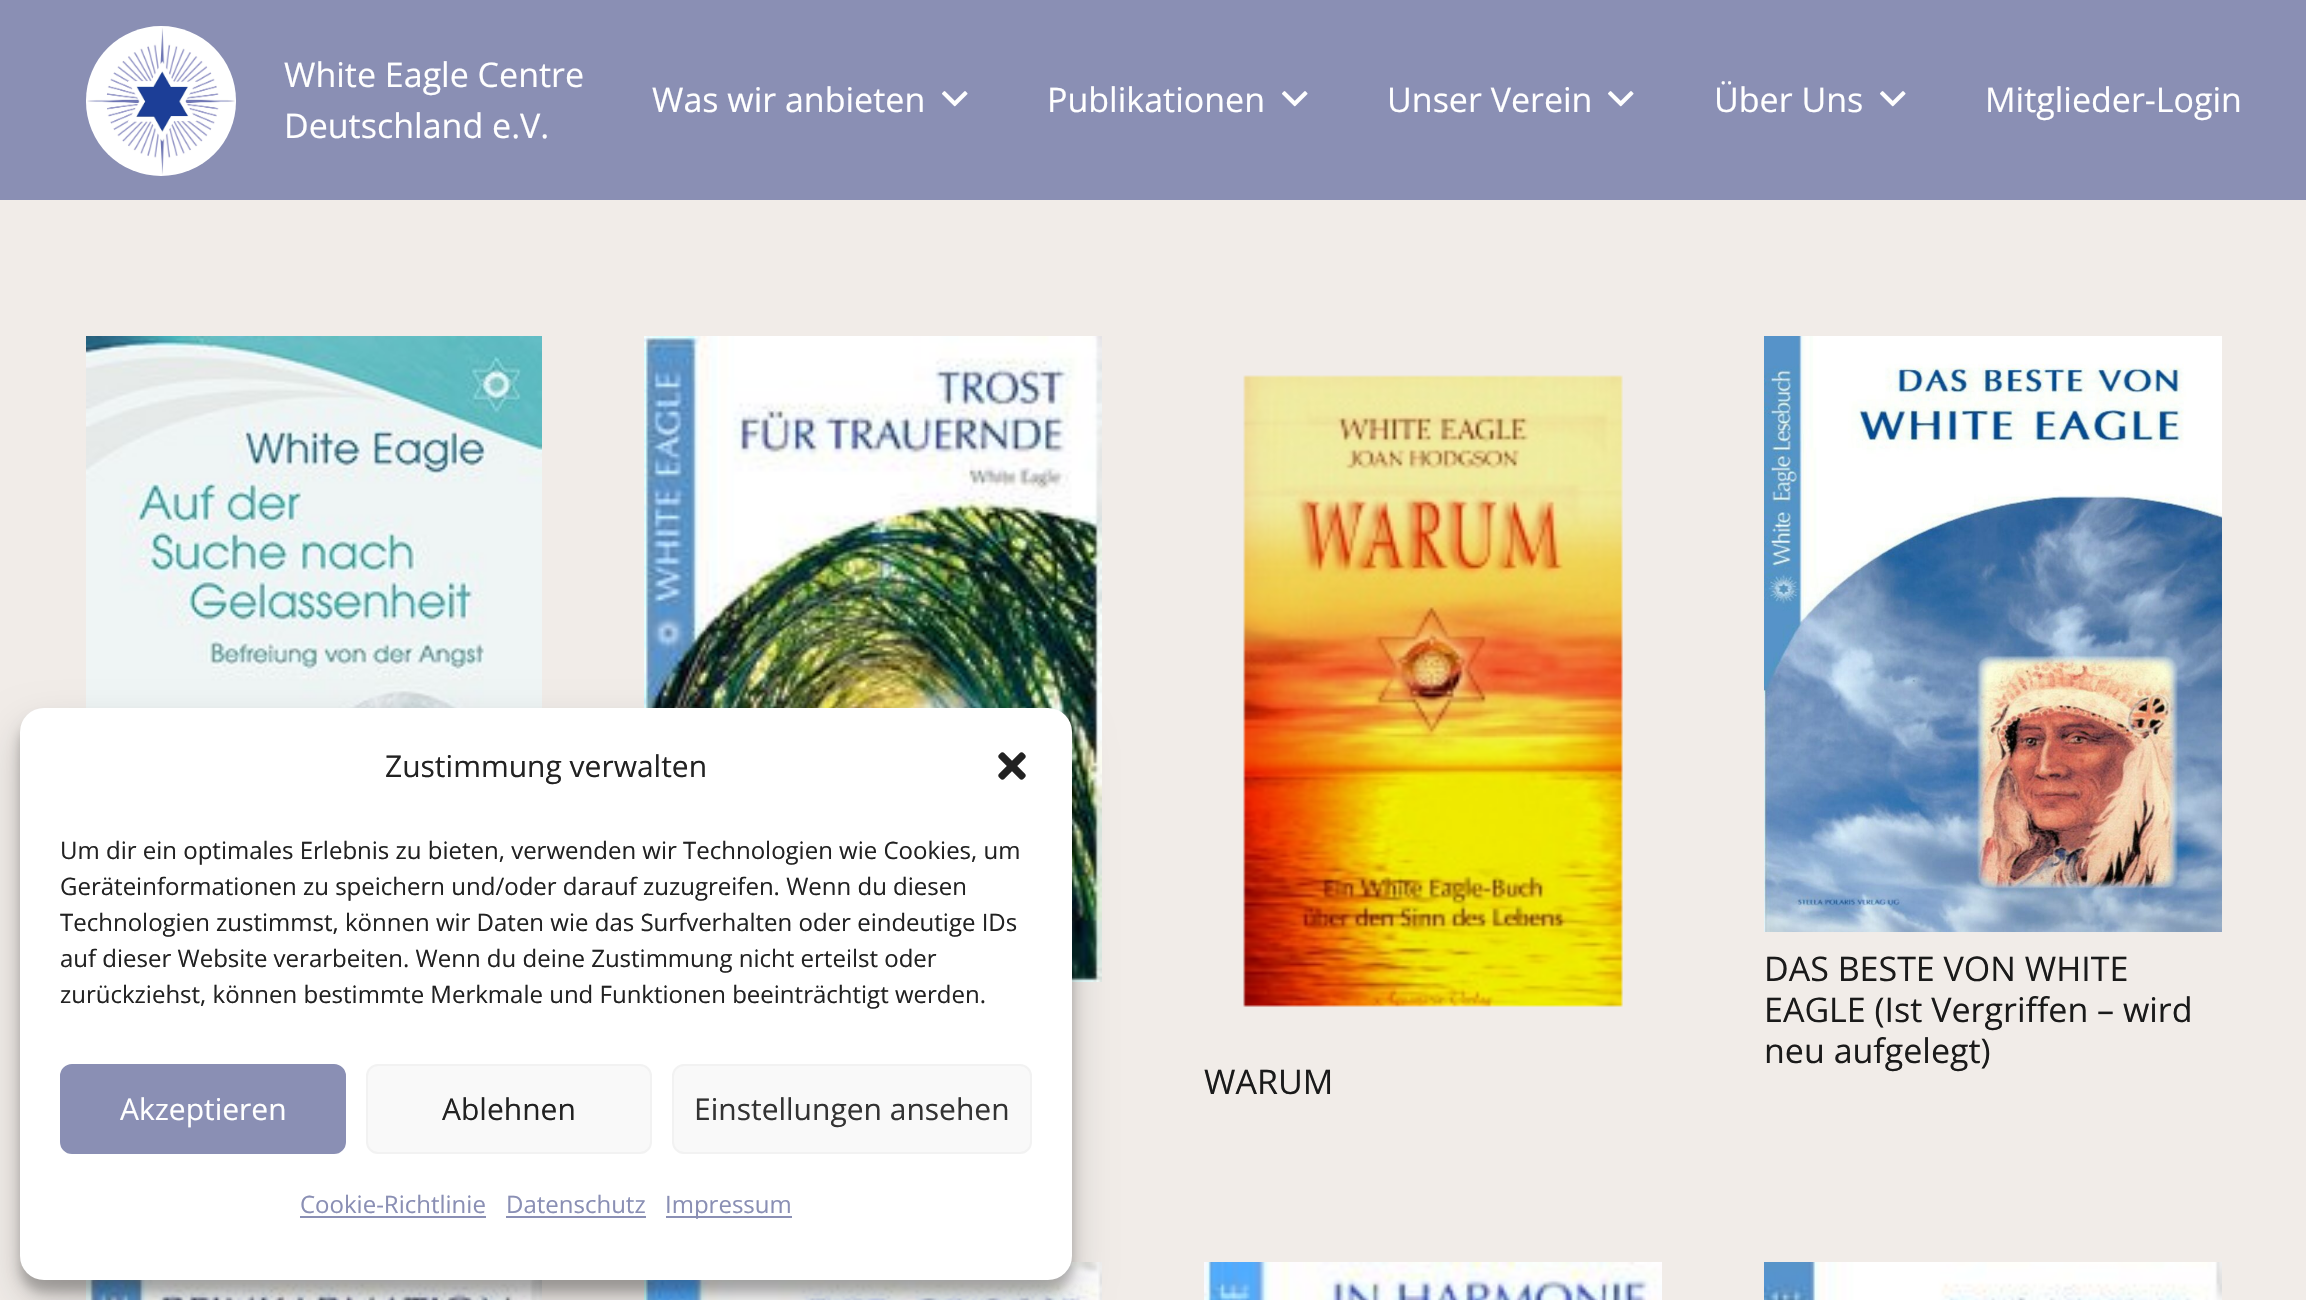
void draw(SkCanvas* c) {
SkPaint p;
p.setAntiAlias(true);
auto F=[&](const char* family, int weight, float size, bool italic = false){SkFontStyle style(weight, SkFontStyle::kNormal_Width,italic ? SkFontStyle::kItalic_Slant : SkFontStyle::kUpright_Slant);SkFont result(fontMgr->matchFamilyStyle(family, style), size);result.setSubpixel(true);return result;};
auto T=[&](const char* s, float x, float y, const SkFont& font){c->drawString(s, x, y, font, p);};
auto R=[&](float x, float y, float w, float h){c->drawRect(SkRect::MakeXYWH(x, y, w, h), p);};
auto Q=[&](float x, float y, float w, float h, float radius){c->drawRoundRect(SkRect::MakeXYWH(x, y, w, h), radius, radius, p);};
auto I=[&](const char* path, float x, float y, float w, float h){auto image = SkImages::DeferredFromEncodedData(SkData::MakeFromFileName(path));c->drawImageRect(image, SkRect::MakeXYWH(x, y, w, h), SkSamplingOptions());};
c->clear(0xfff1ece8);
p.setColor(0xff8a8fb4);
R(0,0,2306,200);
I("1.png",86,26,150,150);
auto f1 = F("Open Sans",400,34);
p.setColor(0xffffffff);
T("White Eagle Centre",284,87,f1);
T("Deutschland e.V.",284,138,f1);
T("Was wir anbieten",652,112,f1);
I("2.png",942,91,26,16);
T("Publikationen",1047,112,f1);
I("2.png",1282,91,26,16);
T("Unser Verein",1387,112,f1);
I("2.png",1608,91,26,16);
T("Über Uns",1714,112,f1);
I("2.png",1880,91,26,16);
T("Mitglieder-Login",1985,112,f1);
I("3.png",86,336,456,372);
I("4.png",644,336,458,646);
I("5.png",1764,336,458,596);
p.setColor(0xff1a1a1a);
T("DAS BESTE VON WHITE",1764,981,f1);
T("EAGLE (Ist Vergriffen – wird",1764,1022,f1);
T("neu aufgelegt)",1764,1063,f1);
I("6.png",1243,375,380,632);
T("WARUM",1204,1094,f1);
I("7.png",86,1280,456,20);
I("8.png",644,1262,458,38);
I("9.png",1204,1262,458,38);
I("10.png",1764,1262,458,38);
p.setColor(0x3b000000);
p.setMaskFilter(SkMaskFilter::MakeBlur(kNormal_SkBlurStyle, 6));
c->drawRoundRect(SkRect::MakeXYWH(20,720,1052,572),24,24,p);
p.setMaskFilter(nullptr);
p.setColor(0x30000000);
p.setMaskFilter(SkMaskFilter::MakeBlur(kNormal_SkBlurStyle, 20));
c->drawRoundRect(SkRect::MakeXYWH(20,728,1052,572),24,24,p);
p.setMaskFilter(nullptr);
p.setColor(0xffffffff);
Q(20,708,1052,572,24);
auto f2 = F("Open Sans",400,30);
p.setColor(0xff222222);
T("Zustimmung verwalten",385,777,f2);
I("11.png",998,752,28,28);
auto f3 = F("Open Sans",400,24);
T("Um dir ein optimales Erlebnis zu bieten, verwenden wir Technologien wie Cookies, um",60,859,f3);
T("Geräteinformationen zu speichern und/oder darauf zuzugreifen. Wenn du diesen",60,895,f3);
T("Technologien zustimmst, können wir Daten wie das Surfverhalten oder eindeutige IDs",60,931,f3);
T("auf dieser Website verarbeiten. Wenn du deine Zustimmung nicht erteilst oder",60,967,f3);
T("zurückziehst, können bestimmte Merkmale und Funktionen beeinträchtigt werden.",60,1003,f3);
p.setColor(0xff8a8fb4);
c->drawRoundRect(SkRect::MakeXYWH(61,1065,284,88),11,11,p);
p.setStroke(true);
p.setStrokeWidth(2);
c->drawRoundRect(SkRect::MakeXYWH(61,1065,284,88),11,11,p);
p.setStroke(false);
p.setColor(0xffffffff);
T("Akzeptieren",120,1120,f2);
p.setColor(0xfff9f9f9);
c->drawRoundRect(SkRect::MakeXYWH(367,1065,284,88),11,11,p);
p.setStroke(true);
p.setColor(0xfff2f2f2);
c->drawRoundRect(SkRect::MakeXYWH(367,1065,284,88),11,11,p);
p.setStroke(false);
p.setColor(0xff222222);
T("Ablehnen",442,1120,f2);
p.setColor(0xfff9f9f9);
c->drawRoundRect(SkRect::MakeXYWH(673,1065,358,88),11,11,p);
p.setStroke(true);
p.setColor(0xfff2f2f2);
c->drawRoundRect(SkRect::MakeXYWH(673,1065,358,88),11,11,p);
p.setStroke(false);
p.setColor(0xff333333);
T("Einstellungen ansehen",694,1120,f2);
p.setColor(0xff8a8fb4);
T("Cookie-Richtlinie",300,1213,f3);
R(300,1216,186,2);
T("Datenschutz",506,1213,f3);
R(506,1216,140,2);
R(666,1216,126,2);
T("Impressum",665,1213,f3);
}
